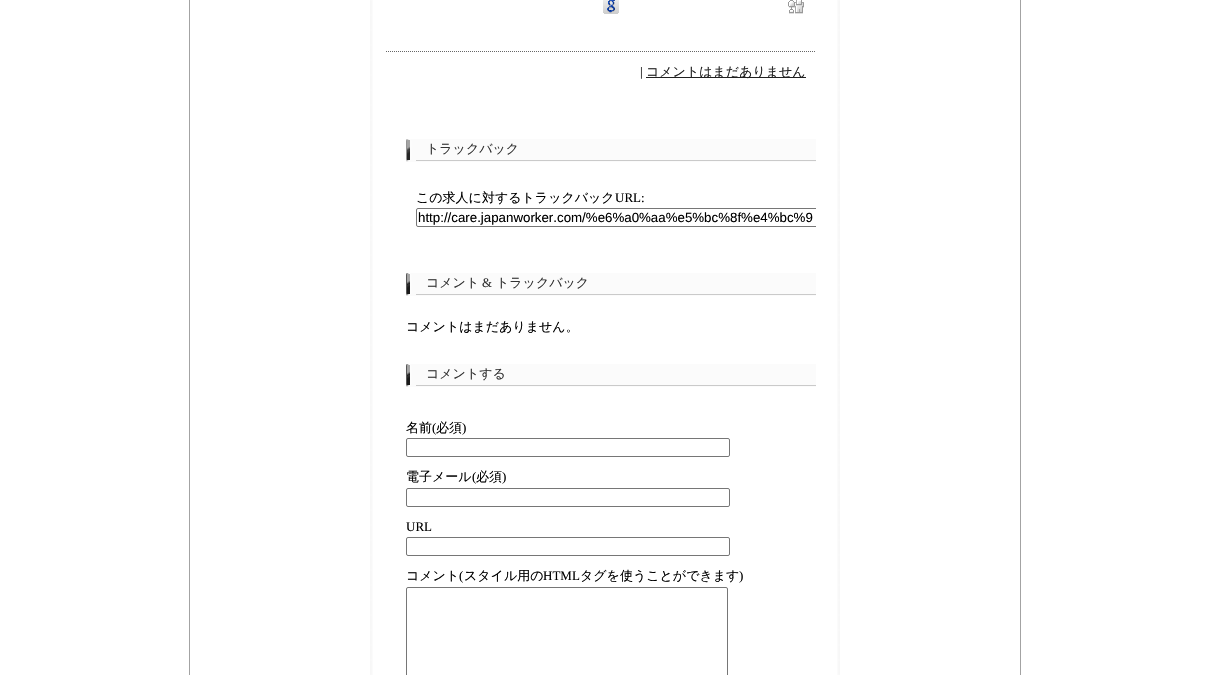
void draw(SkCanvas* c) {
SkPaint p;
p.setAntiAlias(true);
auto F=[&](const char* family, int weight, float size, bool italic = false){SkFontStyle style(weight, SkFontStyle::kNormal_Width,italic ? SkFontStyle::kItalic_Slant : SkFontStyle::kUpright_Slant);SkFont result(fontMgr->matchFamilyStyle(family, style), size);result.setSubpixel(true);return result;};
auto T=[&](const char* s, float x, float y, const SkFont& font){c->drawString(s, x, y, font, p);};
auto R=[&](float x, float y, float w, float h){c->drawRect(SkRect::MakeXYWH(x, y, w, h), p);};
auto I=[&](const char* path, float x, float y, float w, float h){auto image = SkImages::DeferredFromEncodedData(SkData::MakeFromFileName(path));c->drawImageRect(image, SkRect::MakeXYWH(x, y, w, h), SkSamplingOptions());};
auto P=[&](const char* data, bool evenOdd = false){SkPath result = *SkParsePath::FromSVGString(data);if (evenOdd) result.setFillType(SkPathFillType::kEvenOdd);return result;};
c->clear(0xffffffff);
I("1.png",370,0,470,675);
p.setColor(0xffa3a3a3);
R(1020,0,1,675);
R(189,0,1,675);
I("2.png",603,0,16,14);
I("3.png",788,0,16,14);
p.setStroke(true);
p.setStrokeWidth(1);
p.setColor(0xff666666);
p.setPathEffect(SkDashPathEffect::Make({{1,1}}, 0));
c->drawPath(P("M386 51.5h430"),p);
p.setPathEffect(nullptr);
auto f1 = F("Liberation Serif",400,13);
p.setStroke(false);
p.setColor(0xff000000);
T("|",640,76,f1);
p.setColor(0xff202020);
R(646,77,160,1);
auto f2 = F("WenQuanYi Zen Hei",500,13);
T("コメントはまだありません",646,76,f2);
I("4.png",406,139,410,23);
p.setColor(0xff333333);
T("トラックバック",426,153,f2);
p.setColor(0xff000000);
T("この求人に対するトラックバック",416,202,f2);
T("URL:",615,202,f1);
c->save();
c->clipRect(SkRect::MakeXYWH(396,133,420,109));
p.setStroke(true);
p.setColor(0xff767676);
c->drawRoundRect(SkRect::MakeXYWH(416.5,208.5,500,18),1.5,1.5,p);
c->restore();
auto f3 = F("Liberation Sans",400,13.3);
p.setStroke(false);
p.setColor(0xff000000);
T("http://care.japanworker.com/%e6%a0%aa%e5%bc%8f%e4%bc%9",418,222,f3);
I("5.png",406,273,410,23);
p.setColor(0xff333333);
T("コメント",426,287,f2);
T("&",482,287,f1);
T("トラックバック",496,287,f2);
p.setColor(0xff000000);
T("コメントはまだありません。",406,331,f2);
I("5.png",406,364,410,23);
p.setColor(0xff333333);
T("コメントする",426,378,f2);
p.setColor(0xff000000);
T("名前",406,432,f2);
T("(",432,432,f1);
T("必須",436,432,f2);
T(")",462,432,f1);
p.setStroke(true);
p.setColor(0xff767676);
c->drawRoundRect(SkRect::MakeXYWH(406.5,438.5,323,18),1.5,1.5,p);
p.setStroke(false);
p.setColor(0xff000000);
T("電子メール",406,481,f2);
T("(",472,481,f1);
T("必須",476,481,f2);
T(")",502,481,f1);
p.setStroke(true);
p.setColor(0xff767676);
c->drawRoundRect(SkRect::MakeXYWH(406.5,488.5,323,18),1.5,1.5,p);
p.setStroke(false);
p.setColor(0xff000000);
T("URL",406,531,f1);
p.setStroke(true);
p.setColor(0xff767676);
c->drawRoundRect(SkRect::MakeXYWH(406.5,537.5,323,18),1.5,1.5,p);
p.setStroke(false);
p.setColor(0xff000000);
T("コメント",406,580,f2);
T("(",459,580,f1);
T("スタイル用の",464,580,f2);
T("HTML",543,580,f1);
T("タグを使うことができます",580,580,f2);
T(")",739,580,f1);
p.setStroke(true);
p.setColor(0xff767676);
c->drawRoundRect(SkRect::MakeXYWH(406.5,587.5,321,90),1.5,1.5,p);
}
